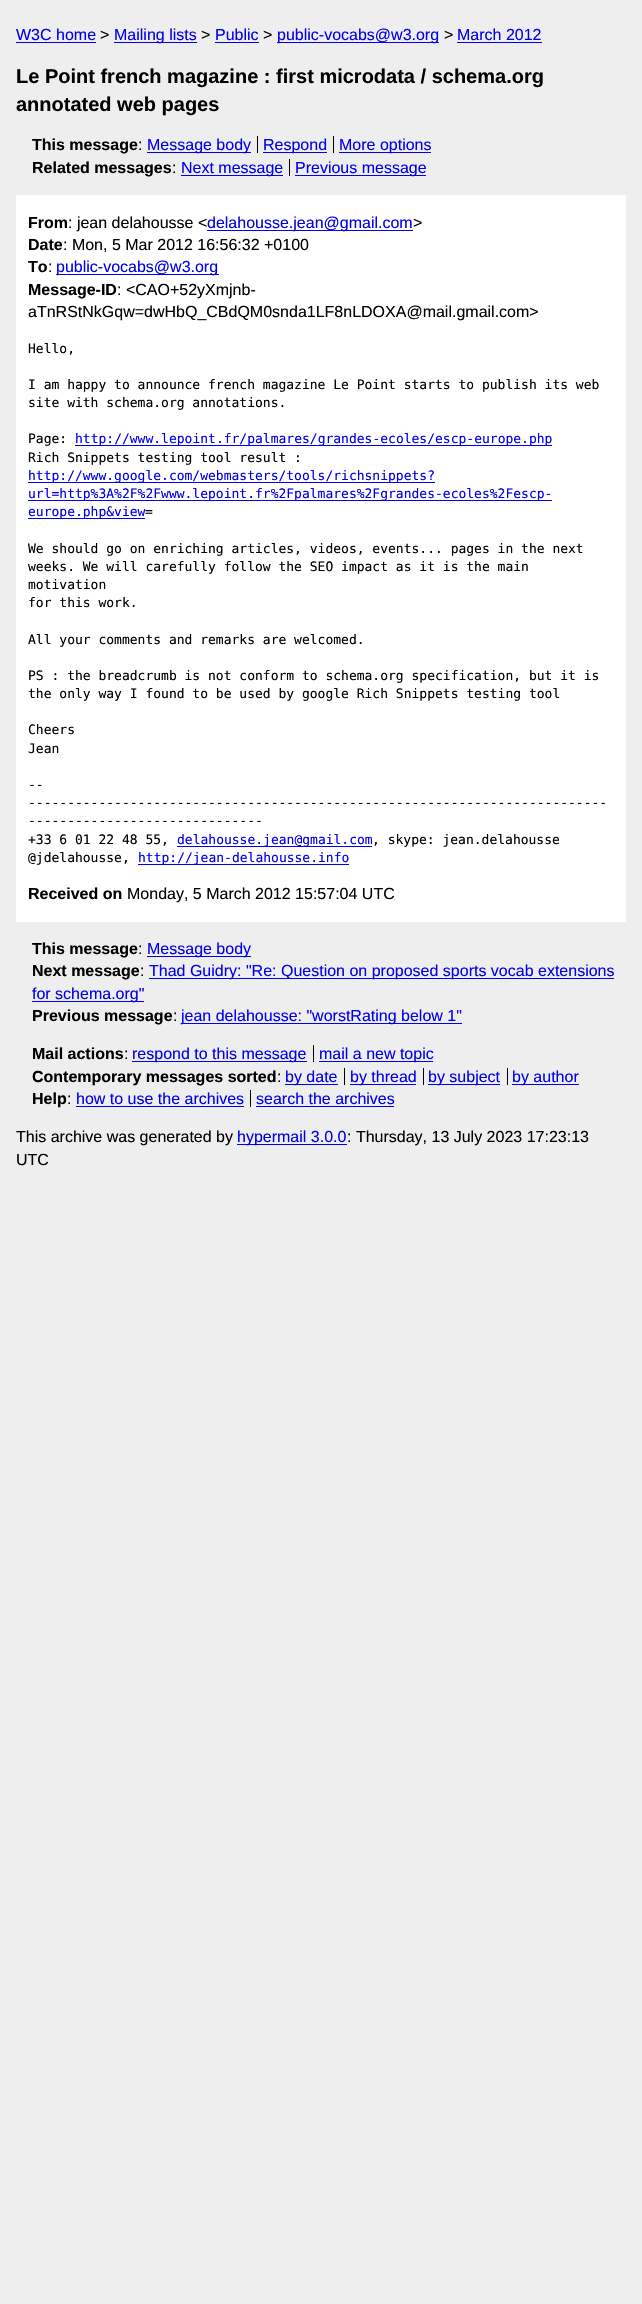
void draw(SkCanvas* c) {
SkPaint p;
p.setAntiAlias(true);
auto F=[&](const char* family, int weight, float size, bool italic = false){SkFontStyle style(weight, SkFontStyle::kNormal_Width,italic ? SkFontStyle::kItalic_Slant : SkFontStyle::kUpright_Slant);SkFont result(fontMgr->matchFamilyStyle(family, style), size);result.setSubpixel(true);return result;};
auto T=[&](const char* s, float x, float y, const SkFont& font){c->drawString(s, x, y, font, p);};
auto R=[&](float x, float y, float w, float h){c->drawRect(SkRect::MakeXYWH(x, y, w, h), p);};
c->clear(0xffeeeeee);
auto f1 = F("Liberation Sans",400,16);
p.setColor(0xff0000ee);
T("W3C home",16,40,f1);
R(16,42,80,1);
p.setColor(0xff000000);
T(">",100,40,f1);
p.setColor(0xff0000ee);
R(114,42,83,1);
T("Mailing lists",114,40,f1);
p.setColor(0xff000000);
T(">",201,40,f1);
p.setColor(0xff0000ee);
T("Public",215,40,f1);
R(215,42,44,1);
p.setColor(0xff000000);
T(">",263,40,f1);
p.setColor(0xff0000ee);
R(277,42,162,1);
T("public-vocabs@w3.org",277,40,f1);
p.setColor(0xff000000);
T(">",444,40,f1);
p.setColor(0xff0000ee);
T("March 2012",457,40,f1);
R(457,42,85,1);
auto f2 = F("Liberation Sans",700,20);
p.setColor(0xff000000);
T("Le Point french magazine : first microdata / schema.org",16,83,f2);
T("annotated web pages",16,111,f2);
auto f3 = F("Liberation Sans",700,16);
T("This message",32,150,f3);
T(":",138,150,f1);
p.setColor(0xff0000ee);
R(147,152,104,1);
T("Message body",147,150,f1);
R(263,152,64,1);
T("Respond",263,150,f1);
p.setColor(0xff000000);
R(257,136,1,17);
p.setColor(0xff0000ee);
R(339,152,92,1);
T("More options",339,150,f1);
p.setColor(0xff000000);
R(333,136,1,17);
T("Related messages",32,173,f3);
T(":",172,173,f1);
p.setColor(0xff0000ee);
R(181,175,102,1);
T("Next message",181,173,f1);
R(295,175,131,1);
T("Previous message",295,173,f1);
p.setColor(0xff000000);
R(289,159,1,17);
p.setColor(0xffffffff);
R(16,195,610,727);
p.setColor(0xff000000);
T("From",28,228,f3);
T(": jean delahousse <",68,228,f1);
p.setColor(0xff0000ee);
R(207,230,206,1);
T("delahousse.jean@gmail.com",207,228,f1);
p.setColor(0xff000000);
T(">",413,228,f1);
T("Date",28,250,f3);
T(": Mon, 5 Mar 2012 16:56:32 +0100",63,250,f1);
T("To",28,272,f3);
T(":",48,272,f1);
p.setColor(0xff0000ee);
R(56,274,163,1);
T("public-vocabs@w3.org",56,272,f1);
p.setColor(0xff000000);
T("Message-ID",28,295,f3);
T(": <CAO+52yXmjnb-",117,295,f1);
T("aTnRStNkGqw=dwHbQ_CBdQM0snda1LF8nLDOXA@mail.gmail.com>",28,317,f1);
auto f4 = F("DejaVu Sans Mono",400,13);
T("Hello,",28,353,f4);
T("I am happy to announce french magazine Le Point starts to publish its web",28,389,f4);
T("site with schema.org annotations.",28,407,f4);
T("Page:",28,443,f4);
p.setColor(0xff0000ee);
R(75,445,477,1);
T("http://www.lepoint.fr/palmares/grandes-ecoles/escp-europe.php",75,443,f4);
p.setColor(0xff000000);
T("Rich Snippets testing tool result :",28,462,f4);
p.setColor(0xff0000ee);
R(28,482,407,1);
T("http://www.google.com/webmasters/tools/richsnippets?",28,480,f4);
R(28,500,524,1);
T("url=http%3A%2F%2Fwww.lepoint.fr%2Fpalmares%2Fgrandes-ecoles%2Fescp-",28,498,f4);
R(28,518,117,1);
T("europe.php&view",28,516,f4);
p.setColor(0xff000000);
T("=",145,516,f4);
T("We should go on enriching articles, videos, events... pages in the next",28,553,f4);
T("weeks. We will carefully follow the SEO impact as it is the main",28,571,f4);
T("motivation",28,589,f4);
T("for this work.",28,607,f4);
T("All your comments and remarks are welcomed.",28,644,f4);
T("PS : the breadcrumb is not conform to schema.org specification, but it is",28,680,f4);
T("the only way I found to be used by google Rich Snippets testing tool",28,698,f4);
T("Cheers",28,734,f4);
T("Jean",28,753,f4);
T("--",28,789,f4);
T("--------------------------------------------------------------------------",28,807,f4);
T("------------------------------",28,825,f4);
T("+33 6 01 22 48 55,",28,844,f4);
p.setColor(0xff0000ee);
R(177,846,195,1);
T("delahousse.jean@gmail.com",177,844,f4);
p.setColor(0xff000000);
T(", skype: jean.delahousse",372,844,f4);
T("@jdelahousse,",28,862,f4);
p.setColor(0xff0000ee);
R(138,864,211,1);
T("http://jean-delahousse.info",138,862,f4);
p.setColor(0xff000000);
T("Received on",28,899,f3);
T("Monday, 5 March 2012 15:57:04 UTC",127,899,f1);
T("This message",32,954,f3);
T(":",138,954,f1);
p.setColor(0xff0000ee);
R(147,956,104,1);
T("Message body",147,954,f1);
p.setColor(0xff000000);
T("Next message",32,976,f3);
T(":",140,976,f1);
p.setColor(0xff0000ee);
R(149,978,465,1);
T("Thad Guidry: \"Re: Question on proposed sports vocab extensions",149,976,f1);
R(32,1001,112,1);
T("for schema.org\"",32,999,f1);
p.setColor(0xff000000);
T("Previous message",32,1021,f3);
T(":",173,1021,f1);
p.setColor(0xff0000ee);
R(181,1023,281,1);
T("jean delahousse: \"worstRating below 1\"",181,1021,f1);
p.setColor(0xff000000);
T("Mail actions",32,1059,f3);
T(":",124,1059,f1);
p.setColor(0xff0000ee);
R(132,1061,175,1);
T("respond to this message",132,1059,f1);
R(319,1061,114,1);
T("mail a new topic",319,1059,f1);
p.setColor(0xff000000);
R(313,1045,1,17);
T("Contemporary messages sorted",32,1082,f3);
T(":",277,1082,f1);
p.setColor(0xff0000ee);
R(285,1084,53,1);
T("by date",285,1082,f1);
R(350,1084,66,1);
T("by thread",350,1082,f1);
p.setColor(0xff000000);
R(344,1068,1,17);
p.setColor(0xff0000ee);
R(428,1084,72,1);
T("by subject",428,1082,f1);
p.setColor(0xff000000);
R(423,1068,1,17);
p.setColor(0xff0000ee);
R(512,1084,67,1);
T("by author",512,1082,f1);
p.setColor(0xff000000);
R(507,1068,1,17);
T("Help",32,1104,f3);
T(":",67,1104,f1);
p.setColor(0xff0000ee);
T("how to use the archives",76,1104,f1);
R(76,1106,168,1);
T("search the archives",256,1104,f1);
p.setColor(0xff000000);
R(250,1090,1,17);
p.setColor(0xff0000ee);
R(256,1106,138,1);
p.setColor(0xff000000);
T("This archive was generated by",16,1142,f1);
p.setColor(0xff0000ee);
R(237,1144,110,1);
T("hypermail 3.0.0",237,1142,f1);
p.setColor(0xff000000);
T(": Thursday, 13 July 2023 17:23:13",347,1142,f1);
T("UTC",16,1165,f1);
}
